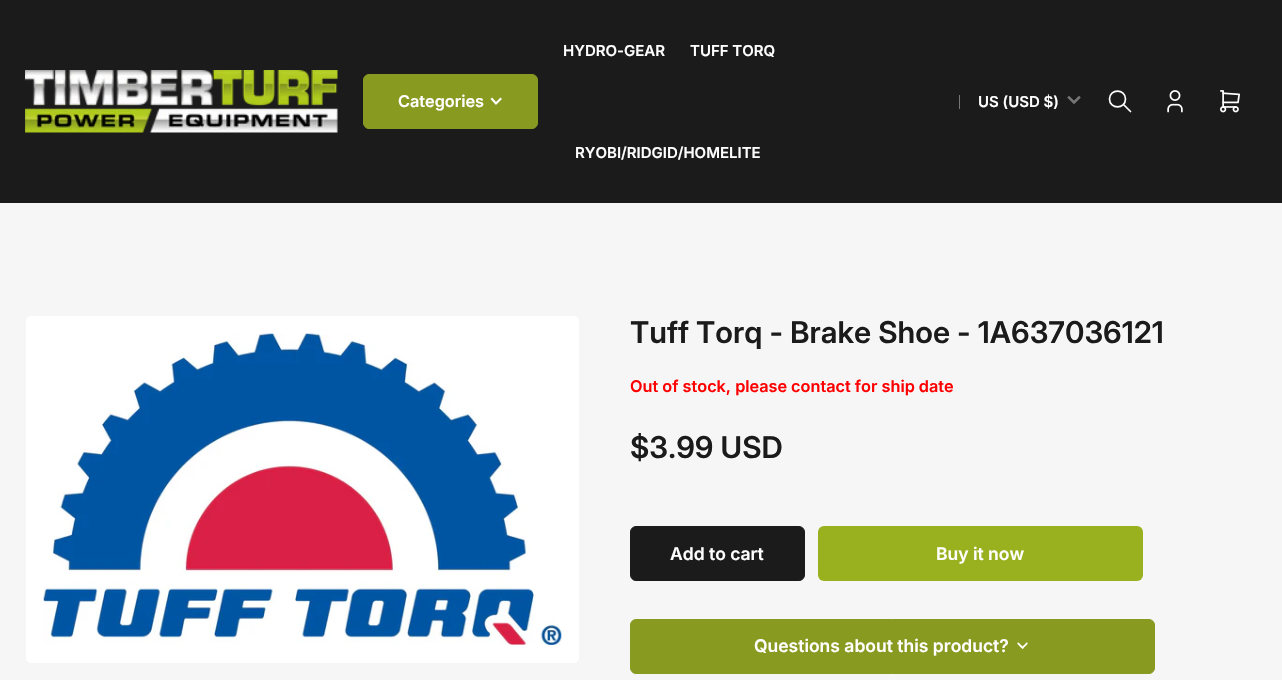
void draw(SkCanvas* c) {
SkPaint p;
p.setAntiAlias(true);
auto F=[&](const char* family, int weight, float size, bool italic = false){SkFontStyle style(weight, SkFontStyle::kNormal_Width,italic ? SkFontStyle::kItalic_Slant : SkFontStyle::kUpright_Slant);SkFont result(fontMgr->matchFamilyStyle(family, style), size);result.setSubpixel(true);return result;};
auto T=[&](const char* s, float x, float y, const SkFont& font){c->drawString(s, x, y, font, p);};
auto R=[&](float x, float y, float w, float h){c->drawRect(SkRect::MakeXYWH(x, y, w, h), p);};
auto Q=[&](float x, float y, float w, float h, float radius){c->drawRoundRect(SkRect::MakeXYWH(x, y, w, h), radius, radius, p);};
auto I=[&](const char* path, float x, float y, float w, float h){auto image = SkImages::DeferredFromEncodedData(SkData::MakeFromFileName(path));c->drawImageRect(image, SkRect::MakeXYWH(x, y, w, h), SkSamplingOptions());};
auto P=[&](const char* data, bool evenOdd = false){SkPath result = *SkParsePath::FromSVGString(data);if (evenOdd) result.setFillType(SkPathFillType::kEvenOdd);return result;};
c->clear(0xfff6f6f6);
p.setColor(0xff1b1b1b);
R(0,0,1282,203);
I("1.png",25,70,313,63);
p.setColor(0xff889a20);
c->drawRoundRect(SkRect::MakeXYWH(363.5,74.5,174,54),5.5,5.5,p);
p.setStroke(true);
p.setStrokeWidth(1);
c->drawRoundRect(SkRect::MakeXYWH(363.5,74.5,174,54),5.5,5.5,p);
auto f1 = F("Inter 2",600,16.25);
p.setStroke(false);
p.setColor(0xffffffff);
T("Categories",398,107,f1);
p.setStroke(true);
p.setStrokeWidth(2.1);
p.setStrokeCap(SkPaint::kSquare_Cap);
c->drawPath(P("M500.5 99l-4.5 4.5l-4-4.5"),p);
auto f2 = F("Inter 2",600,15);
p.setStroke(false);
T("HYDRO-GEAR",563,56,f2);
T("TUFF TORQ",690,56,f2);
T("RYOBI/RIDGID/HOMELITE",575,158,f2);
p.setColor(0xff767676);
R(959,95,1,14);
p.setColor(0xffffffff);
T("US (USD $)",978,107,f2);
p.setStroke(true);
p.setStrokeWidth(2.5);
p.setColor(0xff767676);
c->drawPath(P("M1079 97.5l-5 5l-5-5"),p);
p.setStrokeWidth(1.7);
p.setStrokeCap(SkPaint::kRound_Cap);
p.setStrokeJoin(SkPaint::kRound_Join);
p.setColor(0xffffffff);
c->drawPath(P("M1109.5 99c0 10.5 16 10.5 16 0c0-10.5-16-10.5-16 0m21 12.5l-7-7"),p);
I("2.png",1167,90,16,23);
I("3.png",1220,90,20,23);
p.setStroke(false);
c->drawRoundRect(SkRect::MakeXYWH(25.5,315.5,554,348),5.5,5.5,p);
p.setStroke(true);
p.setStrokeWidth(1);
p.setStrokeCap(SkPaint::kButt_Cap);
p.setStrokeJoin(SkPaint::kMiter_Join);
p.setColor(0xfff6f6f6);
c->drawRoundRect(SkRect::MakeXYWH(25.5,315.5,554,348),5.5,5.5,p);
I("4.png",43,333,519,312);
auto f3 = F("Inter",600,30);
p.setStroke(false);
p.setColor(0xff1b1b1b);
T("Tuff Torq - Brake Shoe - 1A637036121",630,343,f3);
p.setColor(0xffff0000);
T("Out of stock, please contact for ship date",630,392,f1);
p.setColor(0xff1b1b1b);
T("$3.99 USD",630,458,f3);
c->drawRoundRect(SkRect::MakeXYWH(630.5,526.5,174,54),5.5,5.5,p);
p.setStroke(true);
c->drawRoundRect(SkRect::MakeXYWH(630.5,526.5,174,54),5.5,5.5,p);
auto f4 = F("Inter 2",600,17.5);
p.setStroke(false);
p.setColor(0xffffffff);
T("Add to cart",670,560,f4);
p.setColor(0xff99b11f);
Q(818,526,325,55,6);
p.setColor(0xffffffff);
T("Buy it now",936,560,f4);
p.setColor(0xff889a20);
c->drawRoundRect(SkRect::MakeXYWH(630.5,619.5,524,54),5.5,5.5,p);
p.setStroke(true);
c->drawRoundRect(SkRect::MakeXYWH(630.5,619.5,524,54),5.5,5.5,p);
p.setStroke(false);
p.setColor(0xffffffff);
T("Questions about this product?",754,652,f4);
c->drawPath(P("M1019 643l2 2c.5 .5 2.5 2 2.5 3c-.5 2.5-4-2-4.5-2.5l-1.5-1.5c-.5-1 .5-2 1.5-1z"),p);
c->drawPath(P("M1022 647l2-2c1-.5 2-2.5 3-2.5c2.5 .5-2 4-2.5 4.5l-1.5 1.5c-1 .5-1.5-.5-1-1.5z"),p);
}
